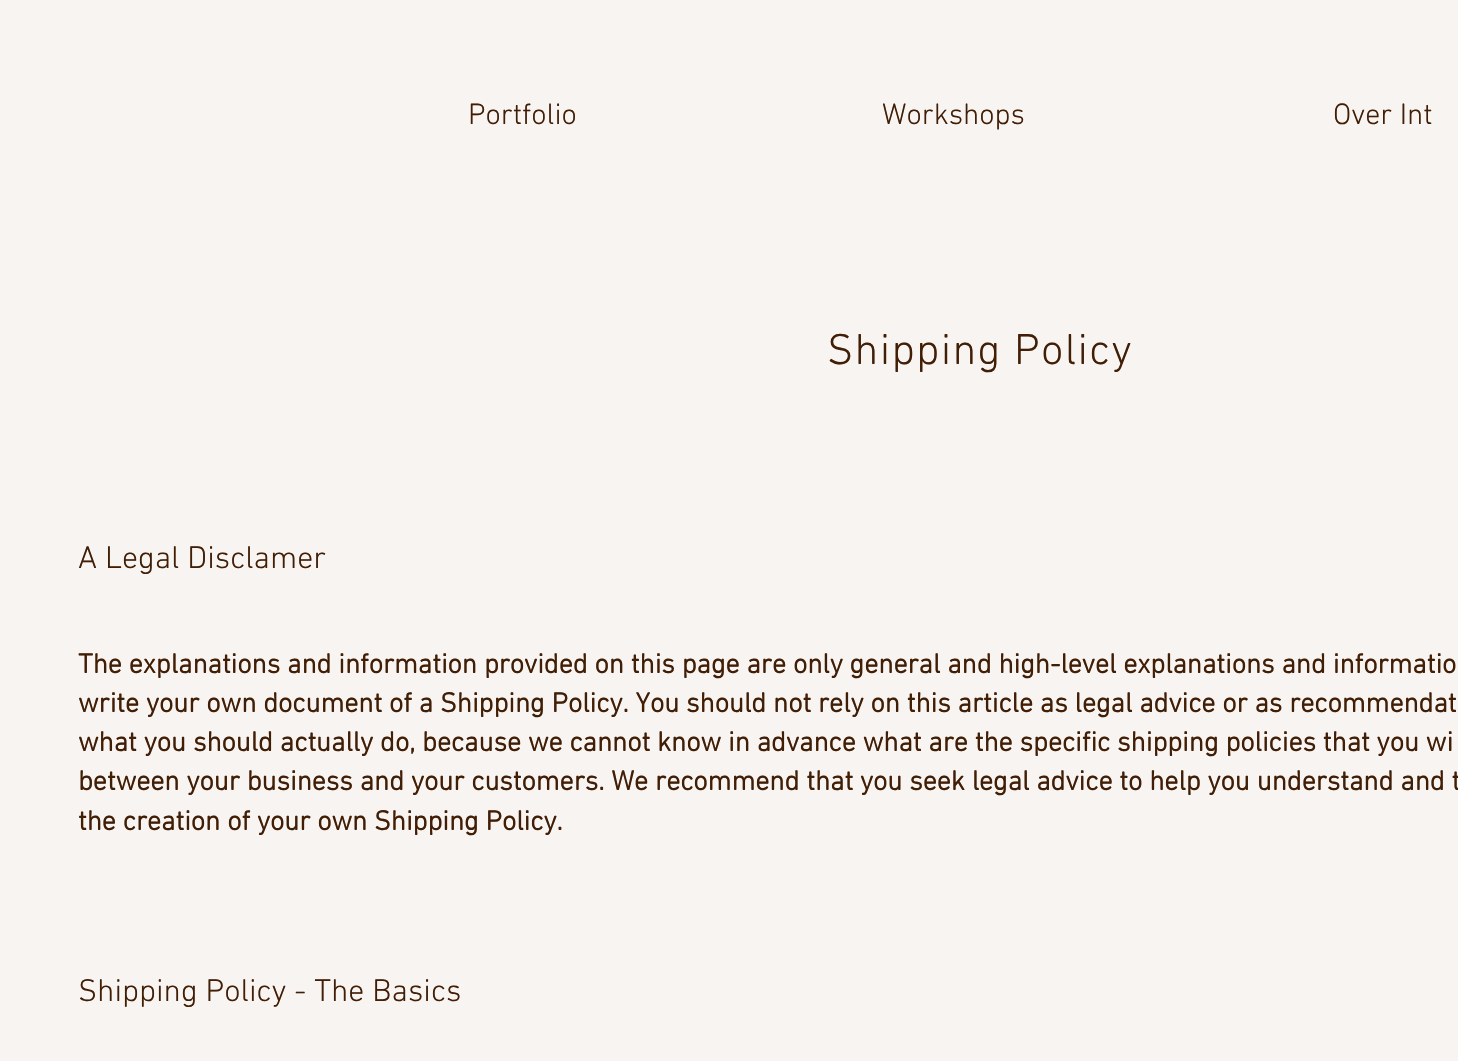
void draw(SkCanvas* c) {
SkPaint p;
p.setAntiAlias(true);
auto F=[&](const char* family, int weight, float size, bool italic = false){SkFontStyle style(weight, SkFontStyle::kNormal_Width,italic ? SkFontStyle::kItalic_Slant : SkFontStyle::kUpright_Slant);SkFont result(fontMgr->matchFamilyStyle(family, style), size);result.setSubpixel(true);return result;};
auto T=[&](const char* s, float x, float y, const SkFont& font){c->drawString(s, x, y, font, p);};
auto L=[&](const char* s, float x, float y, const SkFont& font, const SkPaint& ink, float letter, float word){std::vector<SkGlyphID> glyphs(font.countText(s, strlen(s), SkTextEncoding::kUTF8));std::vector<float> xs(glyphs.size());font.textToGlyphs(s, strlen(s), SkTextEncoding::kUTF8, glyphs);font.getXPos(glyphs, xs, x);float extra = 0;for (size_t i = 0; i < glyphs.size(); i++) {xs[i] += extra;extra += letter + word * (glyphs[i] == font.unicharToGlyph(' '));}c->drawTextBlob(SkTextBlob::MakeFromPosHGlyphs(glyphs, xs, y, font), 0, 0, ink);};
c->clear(0xfff8f4f1);
auto f1 = F("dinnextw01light",300,30);
p.setColor(0xff411e06);
T("Portfolio",468,124,f1);
T("Workshops",882,124,f1);
T("Over Int",1333,124,f1);
auto f2 = F("dinnextw01light",300,44);
L("Shipping Policy",827,364,f2,p,1.3,0);
auto f3 = F("dinnextw01light",300,32);
T("A Legal Disclamer",78,568,f3);
auto f4 = F("dinnextw01light",700,28);
T("The explanations and information provided on this page are only general and high-level explanations and informatio",78,673,f4);
T("write your own document of a Shipping Policy. You should not rely on this article as legal advice or as recommendat",78,712,f4);
T("what you should actually do, because we cannot know in advance what are the specific shipping policies that you wi",78,751,f4);
T("between your business and your customers. We recommend that you seek legal advice to help you understand and t",78,790,f4);
T("the creation of your own Shipping Policy.",78,830,f4);
T("Shipping Policy - The Basics",78,1001,f3);
}
